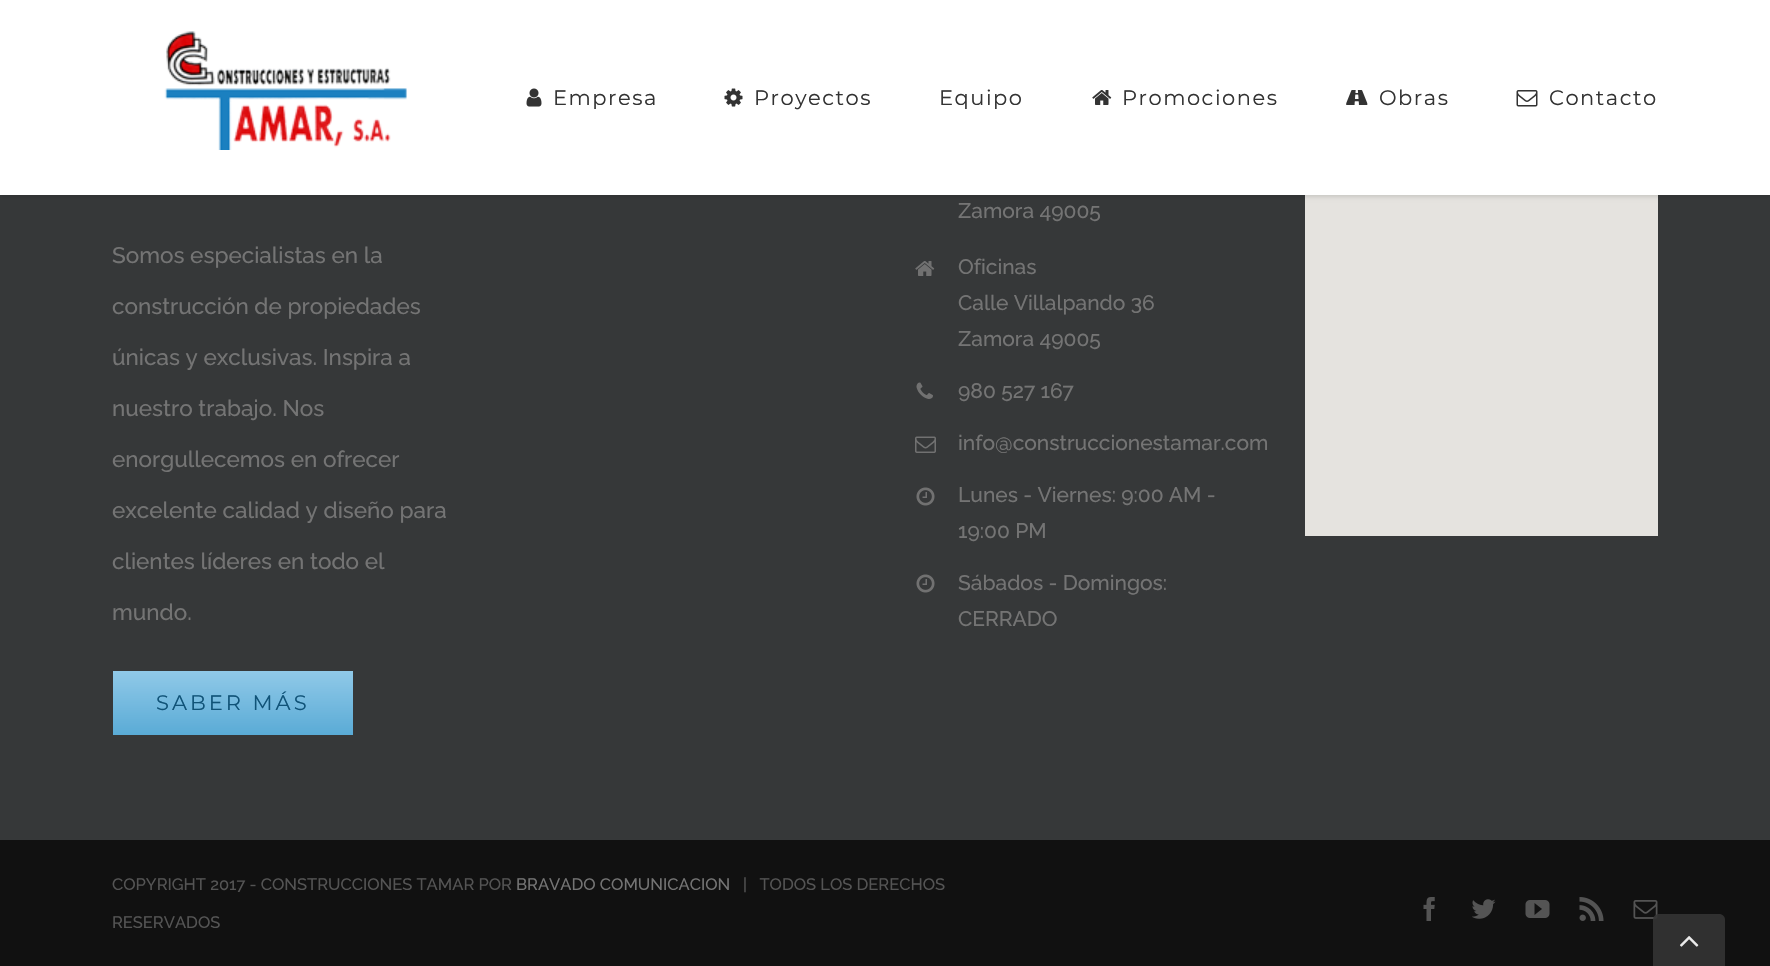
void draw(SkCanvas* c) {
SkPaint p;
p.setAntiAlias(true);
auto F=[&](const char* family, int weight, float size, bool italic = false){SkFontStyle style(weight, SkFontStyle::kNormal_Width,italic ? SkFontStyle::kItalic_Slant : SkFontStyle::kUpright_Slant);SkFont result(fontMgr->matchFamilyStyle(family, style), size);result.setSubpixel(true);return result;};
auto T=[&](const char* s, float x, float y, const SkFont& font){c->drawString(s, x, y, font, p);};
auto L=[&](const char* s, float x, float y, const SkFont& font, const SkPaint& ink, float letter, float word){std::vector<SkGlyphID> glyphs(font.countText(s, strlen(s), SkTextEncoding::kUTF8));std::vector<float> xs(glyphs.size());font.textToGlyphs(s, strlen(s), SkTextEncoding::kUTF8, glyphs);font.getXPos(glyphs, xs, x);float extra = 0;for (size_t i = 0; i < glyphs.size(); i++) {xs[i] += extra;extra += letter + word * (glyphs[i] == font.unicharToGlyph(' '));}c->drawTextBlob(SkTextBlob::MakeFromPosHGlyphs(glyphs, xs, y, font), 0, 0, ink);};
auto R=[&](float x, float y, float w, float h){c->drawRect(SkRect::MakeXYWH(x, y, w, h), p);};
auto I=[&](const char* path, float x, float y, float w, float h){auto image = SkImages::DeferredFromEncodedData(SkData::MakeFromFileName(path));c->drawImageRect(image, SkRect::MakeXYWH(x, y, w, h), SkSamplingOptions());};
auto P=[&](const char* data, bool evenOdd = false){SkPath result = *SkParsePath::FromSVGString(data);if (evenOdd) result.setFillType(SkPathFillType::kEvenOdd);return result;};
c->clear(0xff363839);
p.setColor(0xffe5e3df);
R(1305,195,353,341);
p.setColor(0x1f000000);
p.setMaskFilter(SkMaskFilter::MakeBlur(kNormal_SkBlurStyle, 2));
c->drawRect(SkRect::MakeXYWH(0,2,1770,195),p);
p.setMaskFilter(nullptr);
p.setColor(0xffffffff);
R(0,0,1770,195);
I("1.png",164,31,243,119);
I("2.png",526,88,16,19);
auto f1 = F("Montserrat",400,21);
p.setColor(0xff333333);
L("Empresa",553,105,f1,p,1.5,0);
I("3.png",724,88,19,19);
L("Proyectos",754,105,f1,p,1.5,0);
L("Equipo",939,105,f1,p,1.5,0);
I("4.png",1092,90,20,15);
L("Promociones",1122,105,f1,p,1.5,0);
I("5.png",1346,90,22,15);
L("Obras",1379,105,f1,p,1.5,0);
I("6.png",1516,90,22,17);
L("Contacto",1549,105,f1,p,1.5,0);
auto f2 = F("Raleway",500,22.5);
p.setColor(0xff747474);
T("Somos especialistas en la",112,263,f2);
T("construcción de propiedades",112,314,f2);
T("únicas y exclusivas. Inspira a",112,365,f2);
T("nuestro trabajo. Nos",112,416,f2);
T("enorgullecemos en ofrecer",112,467,f2);
T("excelente calidad y diseño para",112,518,f2);
T("clientes líderes en todo el",112,569,f2);
T("mundo.",112,620,f2);
{
const SkColor colors[] = {0xff5aabd6,0xff90c9e8};
const float stops[] = {0,1};
const SkPoint ends[] = {{233,735}, {233,671}};
p.setShader(SkGradientShader::MakeLinear(ends, colors, stops, 2, SkTileMode::kClamp));
p.setAlpha(255);
}
R(113,671,240,64);
p.setShader(nullptr);
p.setColor(0xff105378);
L("SABER MÁS",156,710,f1,p,3,0);
auto f3 = F("Raleway",500,21);
p.setColor(0xff747474);
T("Zamora 49005",958,218,f3);
I("7.png",915,261,20,15);
T("Oficinas",958,274,f3);
T("Calle Villalpando 36",958,310,f3);
T("Zamora 49005",958,346,f3);
I("8.png",916,382,17,17);
T("980 527 167",958,398,f3);
I("9.png",915,436,21,17);
T("info@construccionestamar.com",958,450,f3);
I("10.png",916,487,19,19);
T("Lunes - Viernes: 9:00 AM -",958,502,f3);
T("19:00 PM",958,538,f3);
I("10.png",916,574,19,19);
T("Sábados - Domingos:",958,590,f3);
T("CERRADO",958,626,f3);
p.setColor(0xff111111);
R(0,840,1770,126);
auto f4 = F("Raleway",500,16.5);
p.setColor(0xff545454);
T("COPYRIGHT 2017 - CONSTRUCCIONES TAMAR POR",112,890,f4);
p.setColor(0xff747474);
T("BRAVADO COMUNICACION",516,890,f4);
p.setColor(0xff545454);
T("|   TODOS LOS DERECHOS",743,890,f4);
T("RESERVADOS",112,928,f4);
I("11.png",1423,897,12,24);
I("12.png",1472,899,24,20);
I("13.png",1525,900,25,18);
I("14.png",1579,897,25,24);
I("15.png",1633,900,25,19);
p.setColor(0xe6333333);
c->drawPath(P("M1659 914h60c3.5 0 6 2.5 6 6v46h-72v-46c0-3.5 2.5-6 6-6z"),p);
I("16.png",1680,936,19,11);
}
